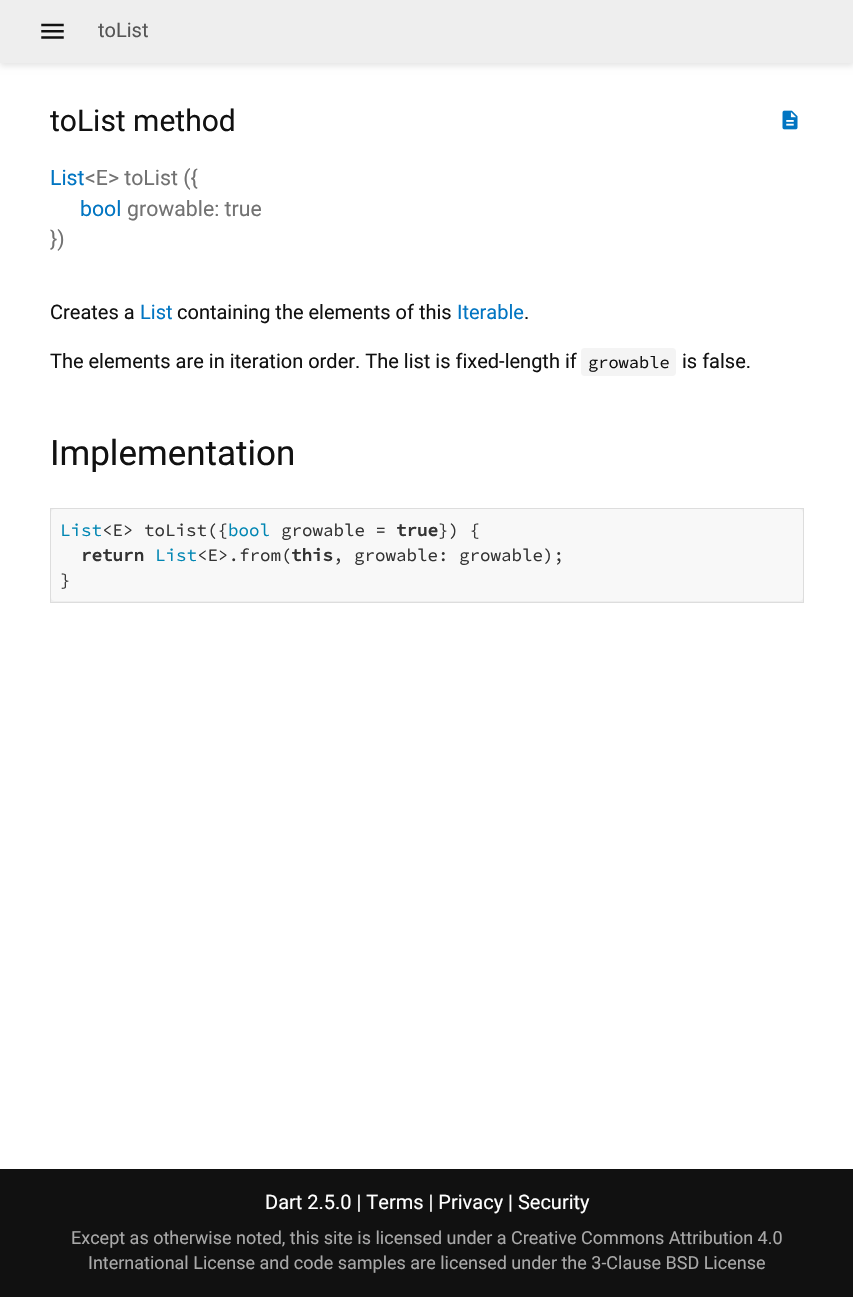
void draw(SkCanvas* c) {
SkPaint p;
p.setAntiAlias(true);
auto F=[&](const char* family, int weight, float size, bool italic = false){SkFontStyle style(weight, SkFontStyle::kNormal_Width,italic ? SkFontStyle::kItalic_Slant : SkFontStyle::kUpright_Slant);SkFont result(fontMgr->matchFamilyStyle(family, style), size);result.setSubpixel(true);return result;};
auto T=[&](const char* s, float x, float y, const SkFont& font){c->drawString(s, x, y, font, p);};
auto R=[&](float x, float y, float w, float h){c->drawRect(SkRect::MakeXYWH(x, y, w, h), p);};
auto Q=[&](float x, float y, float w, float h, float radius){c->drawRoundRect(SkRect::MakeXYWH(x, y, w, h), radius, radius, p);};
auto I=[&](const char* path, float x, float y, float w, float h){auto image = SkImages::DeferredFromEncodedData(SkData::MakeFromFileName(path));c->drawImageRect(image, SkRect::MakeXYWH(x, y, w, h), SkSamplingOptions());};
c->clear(0xffffffff);
p.setColor(0x1a000000);
p.setMaskFilter(SkMaskFilter::MakeBlur(kNormal_SkBlurStyle, 3));
c->drawRect(SkRect::MakeXYWH(0,4,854,62),p);
p.setMaskFilter(nullptr);
p.setColor(0xffeeeeee);
R(0,0,853,63);
I("1.png",41,23,23,16);
auto f1 = F("Roboto",400,20);
p.setColor(0xff555555);
T("toList",98,37,f1);
auto f2 = F("Roboto",400,30);
p.setColor(0xff111111);
T("toList method",50,131,f2);
I("2.png",782,110,16,20);
auto f3 = F("Roboto",400,21.25);
p.setColor(0xff0175c2);
T("List",50,185,f3);
p.setColor(0xff727272);
T("<E> toList ({",85,185,f3);
p.setColor(0xff0175c2);
T("bool",80,216,f3);
p.setColor(0xff727272);
T("growable: true",127,216,f3);
T("})",50,246,f3);
p.setColor(0xff111111);
T("Creates a",50,319,f1);
p.setColor(0xff0175c2);
T("List",140,319,f1);
p.setColor(0xff111111);
T("containing the elements of this",177,319,f1);
p.setColor(0xff0175c2);
T("Iterable",457,319,f1);
p.setColor(0xff111111);
T(".",524,319,f1);
T("The elements are in iteration order. The list is fixed-length if",50,368,f1);
p.setColor(0xfff4f4f4);
Q(581,348,95,28,4);
auto f4 = F("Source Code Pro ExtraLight",400,17);
p.setColor(0xff111111);
T("growable",588,368,f4);
T("is false.",682,368,f1);
auto f5 = F("Roboto",400,35);
T("Implementation",50,465,f5);
p.setColor(0xffeeeeee);
c->drawRect(SkRect::MakeXYWH(50.5,508.5,753,94),p);
p.setStroke(true);
p.setStrokeWidth(1);
p.setColor(0xffdddddd);
c->drawRect(SkRect::MakeXYWH(50.5,508.5,753,94),p);
p.setStroke(false);
p.setColor(0xfff8f8f8);
Q(51,509,752,92,4);
auto f6 = F("Source Code Pro ExtraLight",400,17.5);
p.setColor(0xff0086b3);
T("List",60,536,f6);
p.setColor(0xff333333);
T("<E> toList({",102,536,f6);
p.setColor(0xff0086b3);
T("bool",228,536,f6);
p.setColor(0xff333333);
T("growable =",281,536,f6);
auto f7 = F("Source Code Pro ExtraLight",700,17.5);
T("true",396,536,f7);
T("}) {",438,536,f6);
T("return",81,561,f7);
p.setColor(0xff0086b3);
T("List",155,561,f6);
p.setColor(0xff333333);
T("<E>.from(",197,561,f6);
T("this",291,561,f7);
T(", growable: growable);",333,561,f6);
T("}",60,586,f6);
p.setColor(0xff111111);
R(0,1169,853,128);
p.setColor(0xffffffff);
T("Dart 2.5.0 | Terms | Privacy | Security",265,1209,f1);
auto f8 = F("Roboto",400,18);
p.setColor(0xffa9a9a9);
T("Except as otherwise noted, this site is licensed under a Creative Commons Attribution 4.0",71,1244,f8);
T("International License and code samples are licensed under the 3-Clause BSD License",88,1269,f8);
}
